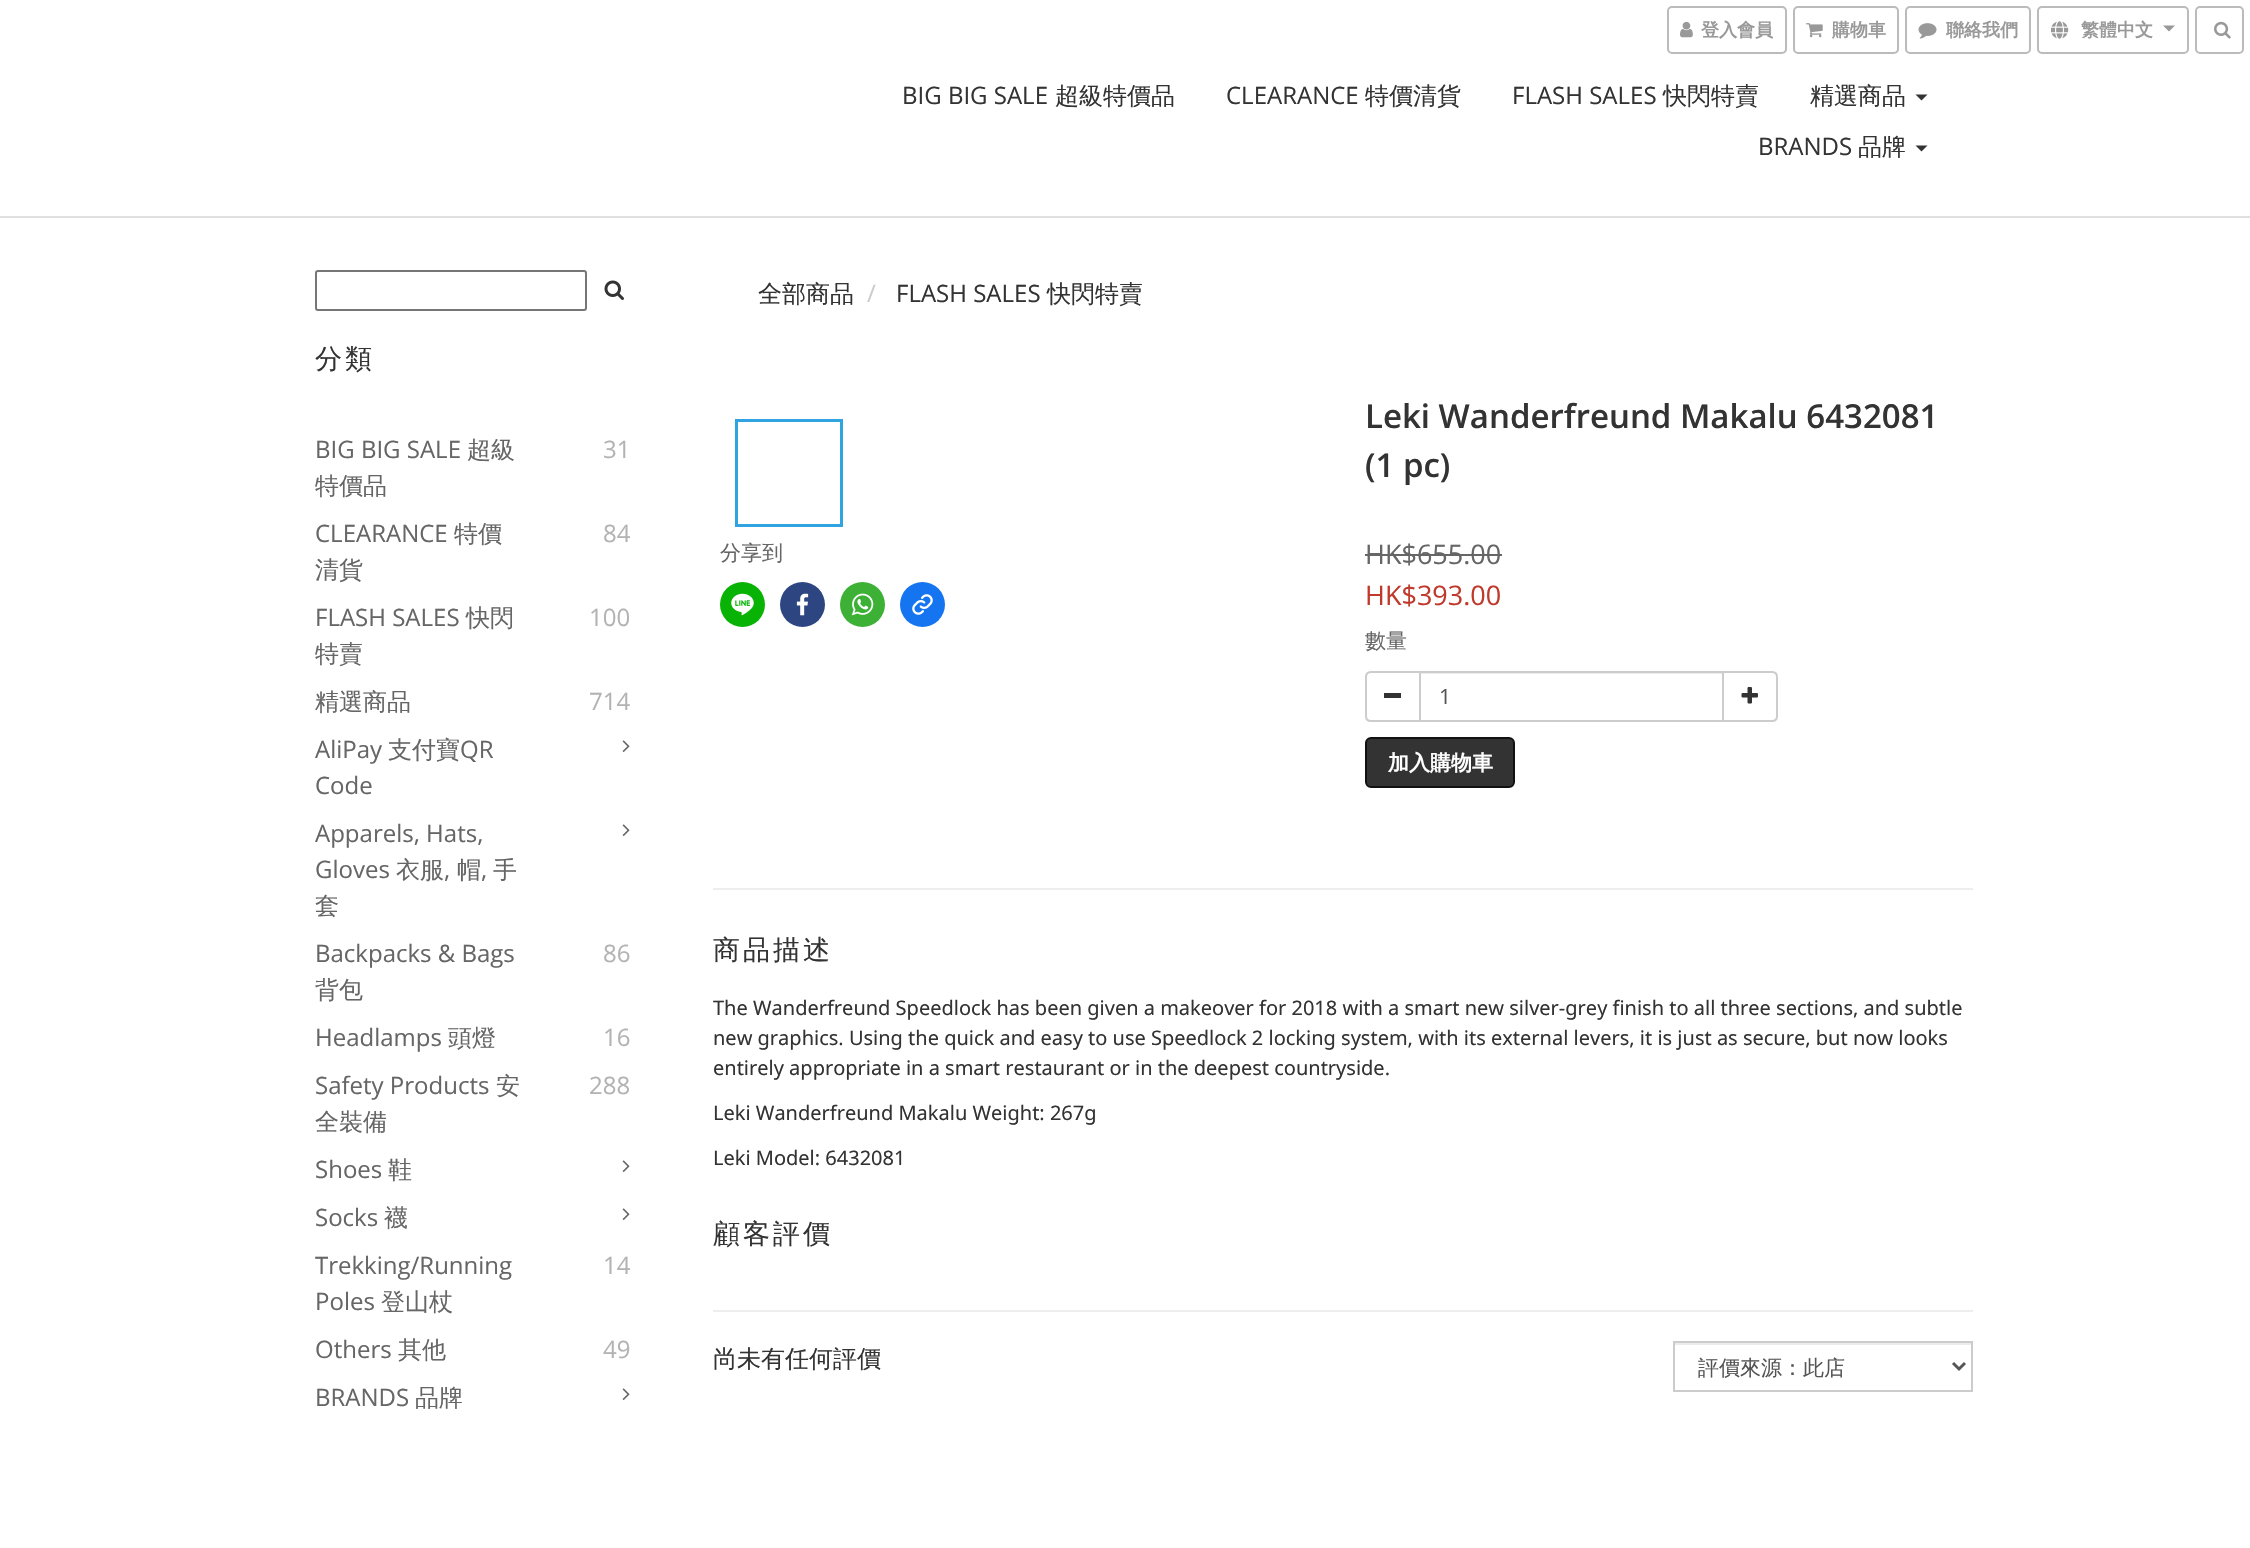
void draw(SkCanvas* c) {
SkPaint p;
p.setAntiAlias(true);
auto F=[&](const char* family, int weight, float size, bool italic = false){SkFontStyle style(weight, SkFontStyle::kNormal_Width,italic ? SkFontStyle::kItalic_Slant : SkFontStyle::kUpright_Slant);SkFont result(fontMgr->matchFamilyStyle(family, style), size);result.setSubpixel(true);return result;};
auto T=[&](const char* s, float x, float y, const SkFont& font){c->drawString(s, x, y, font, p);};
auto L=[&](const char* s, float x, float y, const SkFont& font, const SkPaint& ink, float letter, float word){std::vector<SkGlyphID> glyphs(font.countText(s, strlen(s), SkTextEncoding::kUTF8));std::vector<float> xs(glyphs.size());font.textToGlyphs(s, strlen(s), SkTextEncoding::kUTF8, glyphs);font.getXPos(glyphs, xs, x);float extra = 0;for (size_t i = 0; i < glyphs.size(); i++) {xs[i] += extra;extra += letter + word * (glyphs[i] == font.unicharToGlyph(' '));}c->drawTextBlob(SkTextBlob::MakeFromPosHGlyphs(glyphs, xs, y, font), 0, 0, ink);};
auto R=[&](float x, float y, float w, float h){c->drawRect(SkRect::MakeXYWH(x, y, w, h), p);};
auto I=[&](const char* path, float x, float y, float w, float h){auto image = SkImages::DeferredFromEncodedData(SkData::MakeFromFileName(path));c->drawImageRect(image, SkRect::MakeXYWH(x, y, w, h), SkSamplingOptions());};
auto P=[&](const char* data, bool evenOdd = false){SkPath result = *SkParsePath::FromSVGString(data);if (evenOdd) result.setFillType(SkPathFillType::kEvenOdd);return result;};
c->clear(0xffffffff);
p.setStroke(true);
p.setStrokeWidth(2);
p.setColor(0xffbbbbbb);
c->drawRoundRect(SkRect::MakeXYWH(1668,7,118,46),4,4,p);
I("1.png",1680,21,13,17);
auto f1 = F("WenQuanYi Zen Hei",700,18);
p.setStroke(false);
p.setColor(0xff999999);
T("登入會員",1701,36,f1);
p.setStroke(true);
p.setColor(0xffbbbbbb);
c->drawRoundRect(SkRect::MakeXYWH(1794,7,104,46),4,4,p);
I("2.png",1806,23,17,15);
p.setStroke(false);
p.setColor(0xff999999);
T("購物車",1832,36,f1);
p.setStroke(true);
p.setColor(0xffbbbbbb);
c->drawRoundRect(SkRect::MakeXYWH(1906,7,124,46),4,4,p);
I("3.png",1918,23,19,16);
p.setStroke(false);
p.setColor(0xff999999);
T("聯絡我們",1946,36,f1);
p.setStroke(true);
p.setColor(0xffbbbbbb);
c->drawRoundRect(SkRect::MakeXYWH(2038,7,150,46),4,4,p);
I("4.png",2051,21,18,18);
p.setStroke(false);
p.setColor(0xff999999);
T("繁體中文",2081,36,f1);
c->drawPath(P("M2163 25.5h12l-6 6z"),p);
p.setStroke(true);
p.setColor(0xffbbbbbb);
c->drawRoundRect(SkRect::MakeXYWH(2196,7,47,46),4,4,p);
I("5.png",2214,21,17,18);
p.setStroke(false);
p.setColor(0xffe0e0e0);
R(0,216,2250,2);
auto f2 = F("Open Sans",400,24);
p.setColor(0xff333333);
T("BIG BIG SALE",902,104,f2);
auto f3 = F("WenQuanYi Zen Hei",500,24);
T("超級特價品",1055,104,f3);
T("CLEARANCE",1226,104,f2);
T("特價清貨",1365,104,f3);
T("FLASH SALES",1512,104,f2);
T("快閃特賣",1663,104,f3);
T("精選商品",1810,104,f3);
c->drawPath(P("M1915.5 94.5h12l-6 6z"),p);
T("BRANDS",1758,155,f2);
T("品牌",1858,155,f3);
c->drawPath(P("M1915.5 145.5h12l-6 6z"),p);
p.setStroke(true);
p.setColor(0xff767676);
c->drawRoundRect(SkRect::MakeXYWH(316,271,270,39),2,2,p);
I("6.png",604,280,20,20);
auto f4 = F("WenQuanYi Zen Hei",500,27);
p.setStroke(false);
p.setColor(0xff333333);
L("分類",315,368,f4,p,3,0);
p.setColor(0xff666666);
T("BIG BIG SALE",315,458,f2);
T("超級",467,458,f3);
T("特價品",315,494,f3);
p.setColor(0xffb3b3b3);
T("31",603,458,f2);
p.setColor(0xff666666);
T("CLEARANCE",315,542,f2);
T("特價",454,542,f3);
T("清貨",315,578,f3);
p.setColor(0xffb3b3b3);
T("84",603,542,f2);
p.setColor(0xff666666);
T("FLASH SALES",315,626,f2);
T("快閃",466,626,f3);
T("特賣",315,662,f3);
p.setColor(0xffb3b3b3);
T("100",589,626,f2);
p.setColor(0xff666666);
T("精選商品",315,710,f3);
p.setColor(0xffb3b3b3);
T("714",589,710,f2);
p.setColor(0xff666666);
T("AliPay",315,758,f2);
T("支付寶",388,758,f3);
T("QR",460,758,f2);
T("Code",315,794,f2);
I("7.png",622,740,8,12);
T("Apparels, Hats,",315,842,f2);
T("Gloves",315,878,f2);
T("衣服",396,878,f3);
T(",",444,878,f2);
T("帽",457,878,f3);
T(",",481,878,f2);
T("手",493,878,f3);
T("套",315,914,f3);
I("7.png",622,824,8,12);
T("Backpacks & Bags",315,962,f2);
T("背包",315,998,f3);
p.setColor(0xffb3b3b3);
T("86",603,962,f2);
p.setColor(0xff666666);
T("Headlamps",315,1046,f2);
T("頭燈",448,1046,f3);
p.setColor(0xffb3b3b3);
T("16",603,1046,f2);
p.setColor(0xff666666);
T("Safety Products",315,1094,f2);
T("安",496,1094,f3);
T("全裝備",315,1130,f3);
p.setColor(0xffb3b3b3);
T("288",589,1094,f2);
p.setColor(0xff666666);
T("Shoes",315,1178,f2);
T("鞋",388,1178,f3);
I("7.png",622,1160,8,12);
T("Socks",315,1226,f2);
T("襪",384,1226,f3);
I("7.png",622,1208,8,12);
T("Trekking/Running",315,1274,f2);
T("Poles",315,1310,f2);
T("登山杖",381,1310,f3);
p.setColor(0xffb3b3b3);
T("14",603,1274,f2);
p.setColor(0xff666666);
T("Others",315,1358,f2);
T("其他",398,1358,f3);
p.setColor(0xffb3b3b3);
T("49",603,1358,f2);
p.setColor(0xff666666);
T("BRANDS",315,1406,f2);
T("品牌",415,1406,f3);
I("7.png",622,1388,8,12);
p.setColor(0xff333333);
T("全部商品",758,302,f3);
p.setColor(0xffcccccc);
T("/",867,302,f2);
p.setColor(0xff333333);
T("FLASH SALES",896,302,f2);
T("快閃特賣",1047,302,f3);
p.setStroke(true);
p.setStrokeWidth(3);
p.setColor(0xff30a4e1);
c->drawRect(SkRect::MakeXYWH(736.5,420.5,105,105),p);
auto f5 = F("WenQuanYi Zen Hei",500,21);
p.setStroke(false);
p.setColor(0xff666666);
T("分享到",720,560,f5);
p.setColor(0xff09b305);
c->drawCircle(742.5,604.5,22.5,p);
I("8.png",731,593,23,23);
p.setColor(0xff2d4682);
c->drawCircle(802.5,604.5,22.5,p);
I("9.png",796,593,13,23);
p.setColor(0xff3cb136);
c->drawCircle(862.5,604.5,22.5,p);
I("10.png",851,593,23,23);
p.setColor(0xff1575f0);
c->drawCircle(922.5,604.5,22.5,p);
I("11.png",912,594,21,21);
auto f6 = F("Open Sans",600,33);
p.setColor(0xff333333);
T("Leki Wanderfreund Makalu 6432081",1365,428,f6);
T("(1 pc)",1365,477,f6);
auto f7 = F("Open Sans",400,27);
p.setColor(0xff666666);
T("HK$655.00",1365,564,f7);
R(1365,554,137,2);
p.setColor(0xffc0392b);
T("HK$393.00",1365,605,f7);
p.setColor(0xff666666);
T("數量",1365,648,f5);
p.setStroke(true);
p.setStrokeWidth(2);
p.setColor(0xffcccccc);
c->drawPath(P("M1371 672h49v49h-49c-3 0-5-2-5-5v-39c0-3 2-5 5-5z"),p);
p.setStroke(false);
p.setColor(0xff333333);
R(1384,693,17,5);
p.setColor(0xffececec);
R(1421,673,301,1);
p.setStroke(true);
p.setColor(0xffcccccc);
c->drawRect(SkRect::MakeXYWH(1420,672,303,49),p);
auto f8 = F("Open Sans",400,21);
p.setStroke(false);
p.setColor(0xff555555);
T("1",1439,704,f8);
p.setColor(0xffffffff);
c->drawPath(P("M1723 672h49c3 0 5 2 5 5v39c0 3-2 5-5 5h-49z"),p);
p.setStroke(true);
p.setColor(0xffcccccc);
c->drawPath(P("M1723 672h49c3 0 5 2 5 5v39c0 3-2 5-5 5h-49z"),p);
I("12.png",1741,687,17,17);
p.setStroke(false);
p.setColor(0xff333333);
c->drawRoundRect(SkRect::MakeXYWH(1366,738,148,49),5,5,p);
p.setStroke(true);
p.setColor(0xff111111);
c->drawRoundRect(SkRect::MakeXYWH(1366,738,148,49),5,5,p);
auto f9 = F("WenQuanYi Zen Hei",700,21);
p.setStroke(false);
p.setColor(0xffffffff);
T("加入購物車",1388,770,f9);
p.setColor(0xffeeeeee);
R(713,888,1260,2);
p.setColor(0xff333333);
L("商品描述",713,959,f4,p,3,0);
auto f10 = F("Noto Sans",400,20);
T("The Wanderfreund Speedlock has been given a makeover for 2018 with a smart new silver-grey finish to all three sections, and subtle",713,1015,f10);
T("new graphics. Using the quick and easy to use Speedlock 2 locking system, with its external levers, it is just as secure, but now looks",713,1045,f10);
T("entirely appropriate in a smart restaurant or in the deepest countryside.",713,1075,f10);
T("Leki Wanderfreund Makalu Weight: 267g",713,1120,f10);
T("Leki Model: 6432081",713,1165,f10);
L("顧客評價",713,1243,f4,p,3,0);
p.setColor(0xffeeeeee);
R(713,1310,1260,2);
p.setColor(0xff333333);
T("尚未有任何評價",713,1367,f3);
p.setColor(0xffececec);
R(1674,1343,297,2);
p.setStroke(true);
p.setColor(0xffcccccc);
c->drawRect(SkRect::MakeXYWH(1674,1342,298,49),p);
p.setStrokeWidth(3);
p.setColor(0xff555555);
c->drawPath(P("M1953 1363l6 6l6-6"),p);
p.setStroke(false);
T("評價來源：此店",1698,1375,f5);
}
